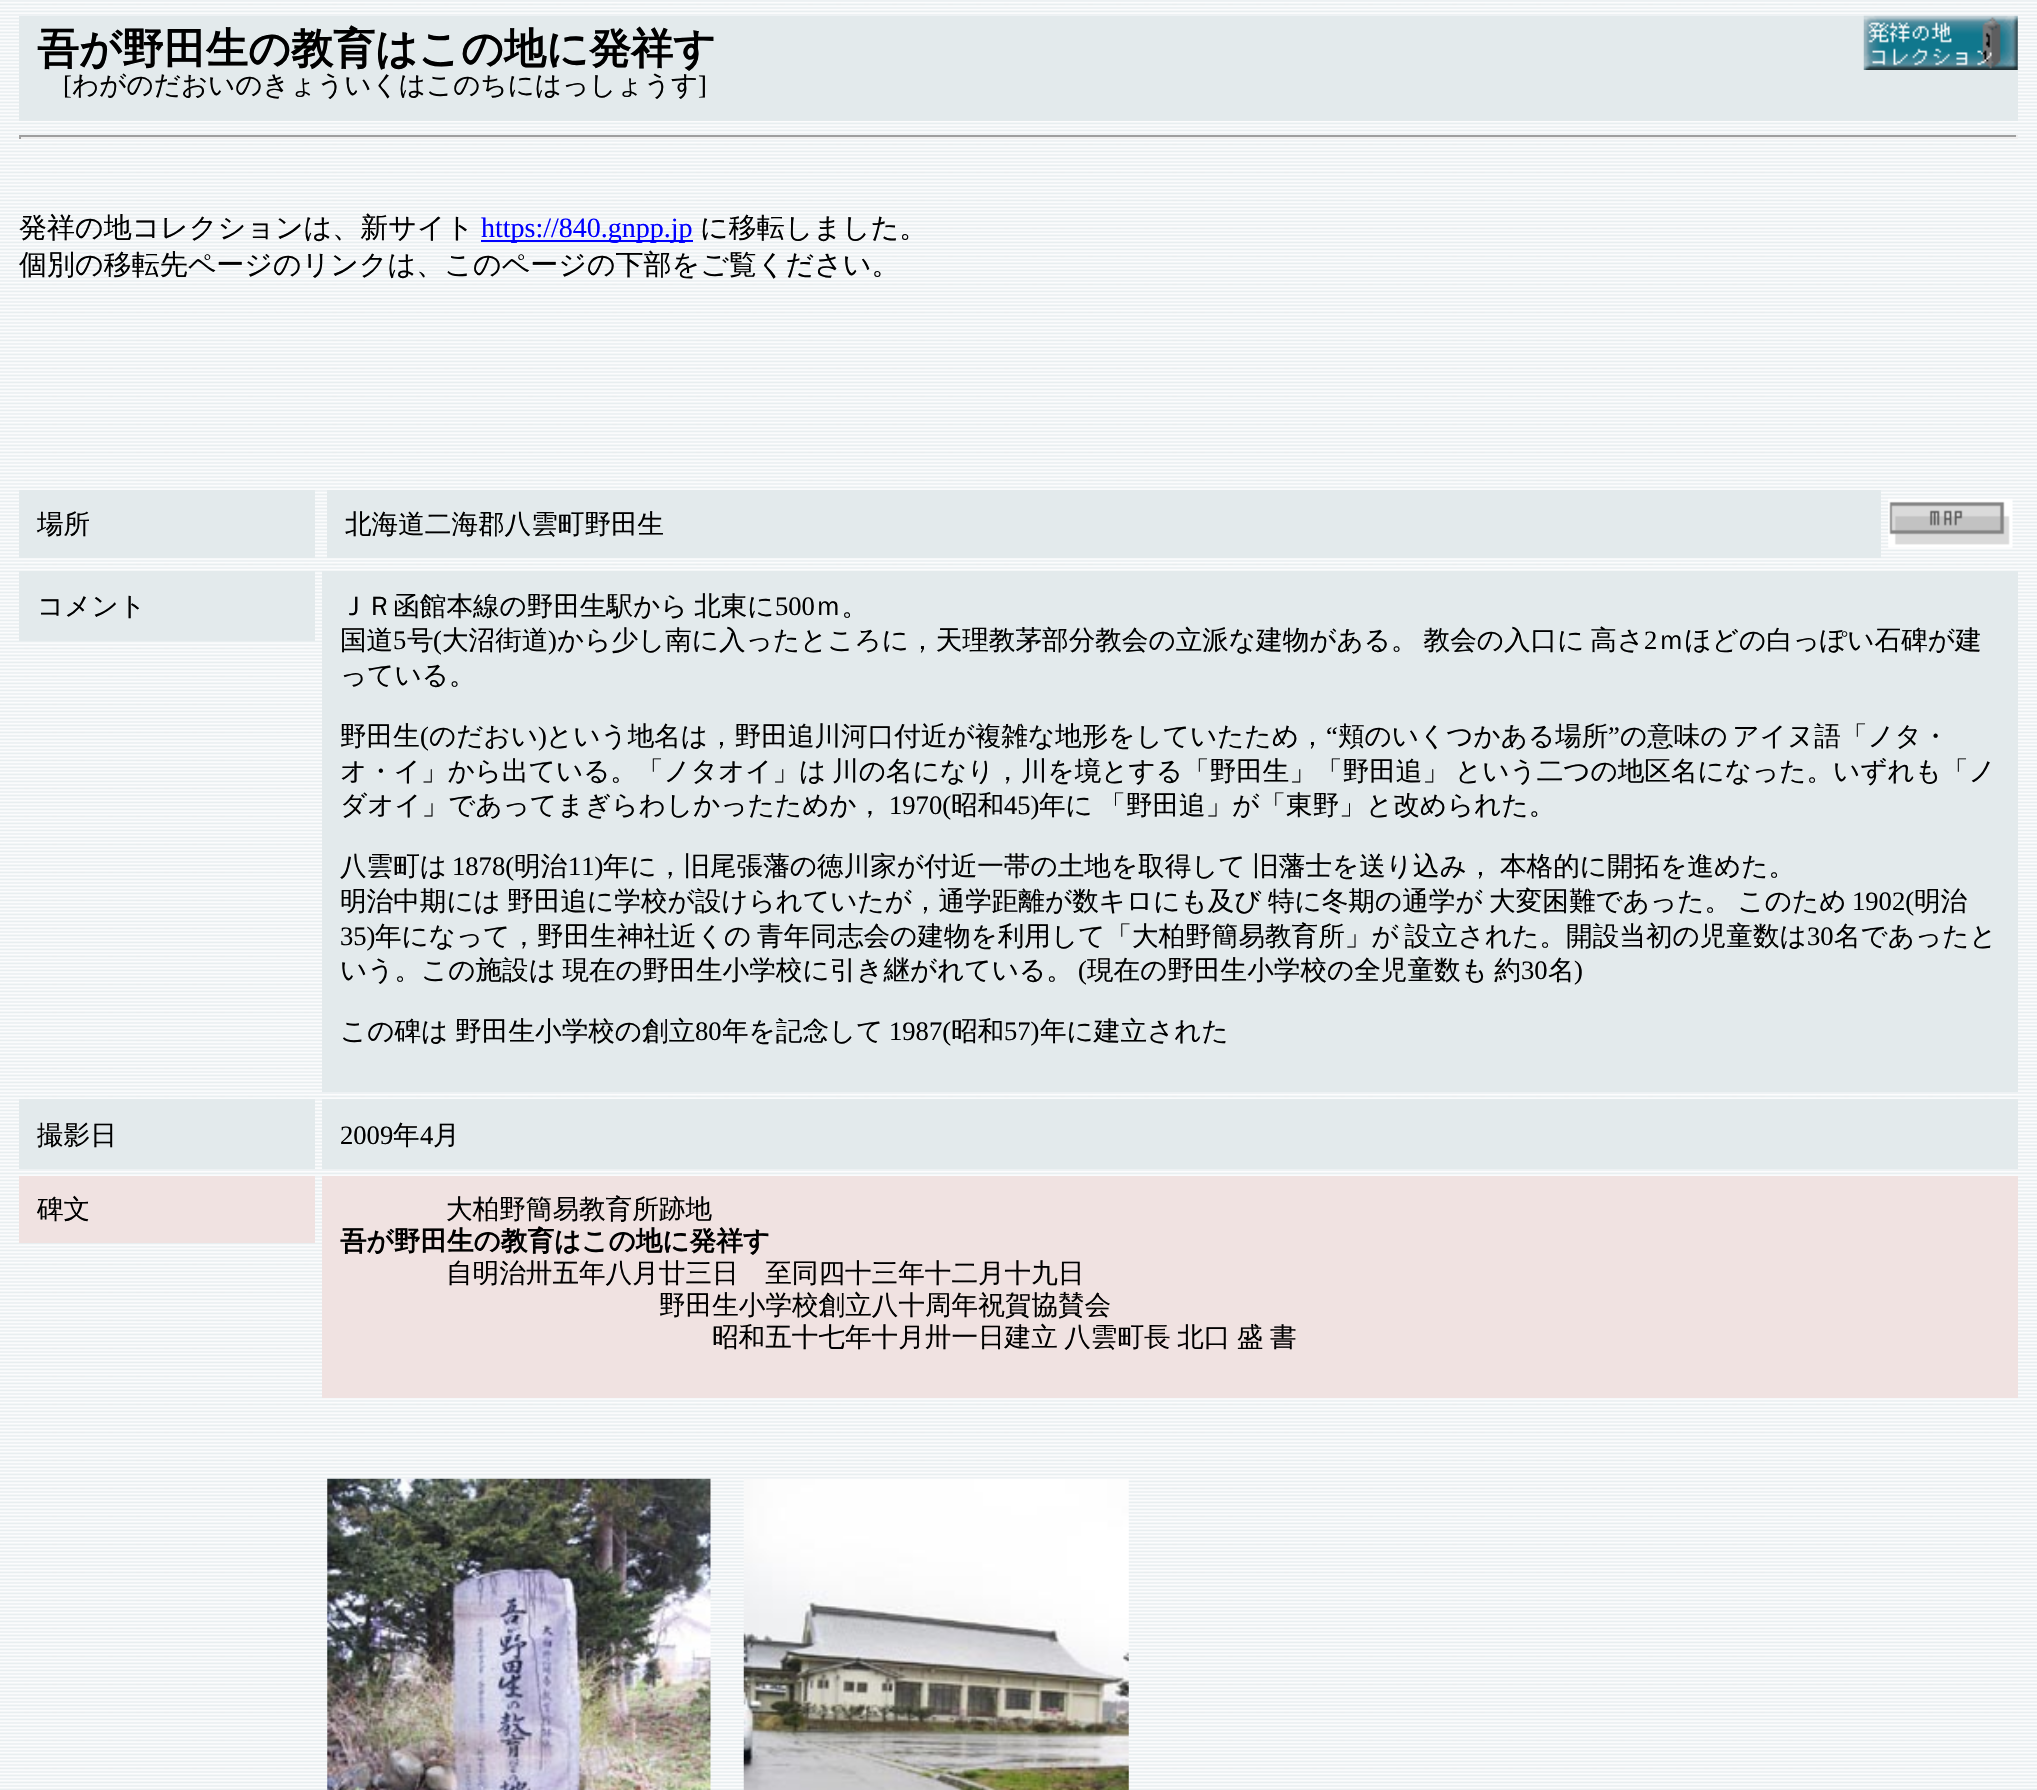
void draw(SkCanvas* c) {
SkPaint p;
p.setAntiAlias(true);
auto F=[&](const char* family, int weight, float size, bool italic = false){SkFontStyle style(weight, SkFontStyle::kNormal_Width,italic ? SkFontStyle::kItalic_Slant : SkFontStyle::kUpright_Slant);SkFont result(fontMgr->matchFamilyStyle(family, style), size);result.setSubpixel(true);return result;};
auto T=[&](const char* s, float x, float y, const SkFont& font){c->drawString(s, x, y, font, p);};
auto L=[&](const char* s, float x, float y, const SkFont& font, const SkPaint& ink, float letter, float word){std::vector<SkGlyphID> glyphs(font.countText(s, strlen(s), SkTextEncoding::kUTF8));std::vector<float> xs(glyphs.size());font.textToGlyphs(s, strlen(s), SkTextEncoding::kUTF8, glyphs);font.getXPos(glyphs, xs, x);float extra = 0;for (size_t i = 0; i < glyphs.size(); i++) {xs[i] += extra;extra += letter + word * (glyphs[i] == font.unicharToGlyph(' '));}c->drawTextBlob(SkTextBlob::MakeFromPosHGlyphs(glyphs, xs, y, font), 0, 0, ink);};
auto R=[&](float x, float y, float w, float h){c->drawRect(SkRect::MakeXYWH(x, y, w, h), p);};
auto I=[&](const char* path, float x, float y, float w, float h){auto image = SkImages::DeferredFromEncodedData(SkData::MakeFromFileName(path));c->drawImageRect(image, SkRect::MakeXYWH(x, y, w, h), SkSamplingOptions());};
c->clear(0xffffffff);
I("1.png",0,0,2037,1790);
p.setColor(0xffe3eaec);
R(19,16,1999,105);
auto f1 = F("WenQuanYi Zen Hei",700,42);
p.setColor(0xff000000);
T("吾が野田生の教育はこの地に発祥す",37,63,f1);
auto f2 = F("Liberation Serif",400,26.6);
T("[",63,94,f2);
auto f3 = F("WenQuanYi Zen Hei",500,26.6);
T("わがのだおいのきょういくはこのちにはっしょうす",72,94,f3);
T("]",698,94,f2);
I("2.png",1863,15,155,55);
p.setColor(0xff9f9f9f);
R(19,135,1999,2);
p.setColor(0xffeeeeee);
R(2016,135,2,4);
R(19,137,1999,2);
p.setColor(0xff9f9f9f);
R(19,135,2,4);
auto f4 = F("WenQuanYi Zen Hei",500,28);
p.setColor(0xff000000);
T("発祥の地コレクションは、新サイト",19,237,f4);
p.setColor(0xff0000ff);
R(481,240,212,2);
auto f5 = F("Liberation Serif",400,28);
T("https://840.gnpp.jp",481,237,f5);
p.setColor(0xff000000);
T("に移転しました。",700,237,f4);
T("個別の移転先ページのリンクは、このページの下部をご覧ください。",19,274,f4);
p.setColor(0xffe3eaec);
R(19,490,296,68);
p.setColor(0xff000000);
T("場所",37,533,f3);
p.setColor(0xffe3eaec);
R(327,490,1554,68);
p.setColor(0xff000000);
T("北海道二海郡八雲町野田生",345,533,f3);
I("3.png",1888,498,125,50);
p.setColor(0xffe3eaec);
R(19,571,296,70);
p.setColor(0xff000000);
T("コメント",37,615,f3);
p.setColor(0xffe3eaec);
R(322,571,1696,521);
p.setColor(0xff000000);
L("ＪＲ函館本線の野田生駅から 北東に",340,615,f3,p,0,-1.5);
T("500",775,615,f2);
T("ｍ。",815,615,f3);
T("国道",340,649,f3);
T("5",393,649,f2);
T("号",407,649,f3);
T("(",433,649,f2);
T("大沼街道",442,649,f3);
T(")",548,649,f2);
L("から少し南に入ったところに，天理教茅部分教会の立派な建物がある。 教会の入口に 高さ",557,649,f3,p,0,-2);
T("2",1644,649,f2);
T("ｍほどの白っぽい石碑が建",1658,649,f3);
T("っている。",340,684,f3);
T("野田生",340,745,f3);
T("(",420,745,f2);
T("のだおい",429,745,f3);
T(")",538,745,f2);
T("という地名は，野田追川河口付近が複雑な地形をしていたため，",546,745,f3);
T("“",1326,745,f2);
T("頬のいくつかある場所",1338,745,f3);
T("”",1608,745,f2);
L("の意味の アイヌ語「ノタ・",1620,745,f3,p,0,-3);
L("オ・イ」から出ている。「ノタオイ」は 川の名になり，川を境とする「野田生」「野田追」 という二つの地区名になった。いずれも「ノ",340,780,f3,p,0,-2);
T("ダオイ」であってまぎらわしかったためか，",340,814,f3);
T("1970(",889,814,f2);
T("昭和",951,814,f3);
T("45)",1004,814,f2);
L("年に 「野田追」が「東野」と改められた。",1039,814,f3,p,0,-1.5);
T("八雲町は",340,875,f3);
T("1878(",452,875,f2);
T("明治",514,875,f3);
T("11)",568,875,f2);
L("年に，旧尾張藩の徳川家が付近一帯の土地を取得して 旧藩士を送り込み， 本格的に開拓を進めた。",603,875,f3,p,0,-1.5);
L("明治中期には 野田追に学校が設けられていたが，通学距離が数キロにも及び 特に冬期の通学が 大変困難であった。 このため",340,910,f3,p,0,-1.5);
T("1902(",1852,910,f2);
T("明治",1914,910,f3);
T("35)",340,945,f2);
L("年になって，野田生神社近くの 青年同志会の建物を利用して「大柏野簡易教育所」が 設立された。開設当初の児童数は",375,945,f3,p,0,-2);
T("30",1807,945,f2);
T("名であったと",1834,945,f3);
L("いう。この施設は 現在の野田生小学校に引き継がれている。",340,979,f3,p,0,-1.5);
T("(",1078,979,f2);
L("現在の野田生小学校の全児童数も 約",1087,979,f3,p,0,-1.5);
T("30",1521,979,f2);
T("名",1548,979,f3);
T(")",1574,979,f2);
L("この碑は 野田生小学校の創立",340,1040,f3,p,0,-1);
T("80",695,1040,f2);
T("年を記念して",722,1040,f3);
T("1987(",889,1040,f2);
T("昭和",951,1040,f3);
T("57)",1004,1040,f2);
T("年に建立された",1040,1040,f3);
p.setColor(0xffe3eaec);
R(19,1099,296,70);
p.setColor(0xff000000);
T("撮影日",37,1144,f3);
p.setColor(0xffe3eaec);
R(322,1099,1696,70);
p.setColor(0xff000000);
T("2009",340,1144,f2);
T("年",393,1144,f3);
T("4",420,1144,f2);
T("月",433,1144,f3);
p.setColor(0xfff0e2e1);
R(19,1176,296,67);
p.setColor(0xff000000);
T("碑文",37,1218,f3);
p.setColor(0xfff0e2e1);
R(322,1176,1696,222);
p.setColor(0xff000000);
T("大柏野簡易教育所跡地",446,1218,f3);
auto f6 = F("WenQuanYi Zen Hei",700,26.6);
T("吾が野田生の教育はこの地に発祥す",340,1250,f6);
T("自明治卅五年八月廿三日　至同四十三年十二月十九日",446,1282,f3);
T("野田生小学校創立八十周年祝賀協賛会",659,1314,f3);
L("昭和五十七年十月卅一日建立 八雲町長 北口 盛 書",712,1346,f3,p,0,-1.5);
I("4.png",327,1478,384,312);
I("5.png",743,1478,386,312);
}
